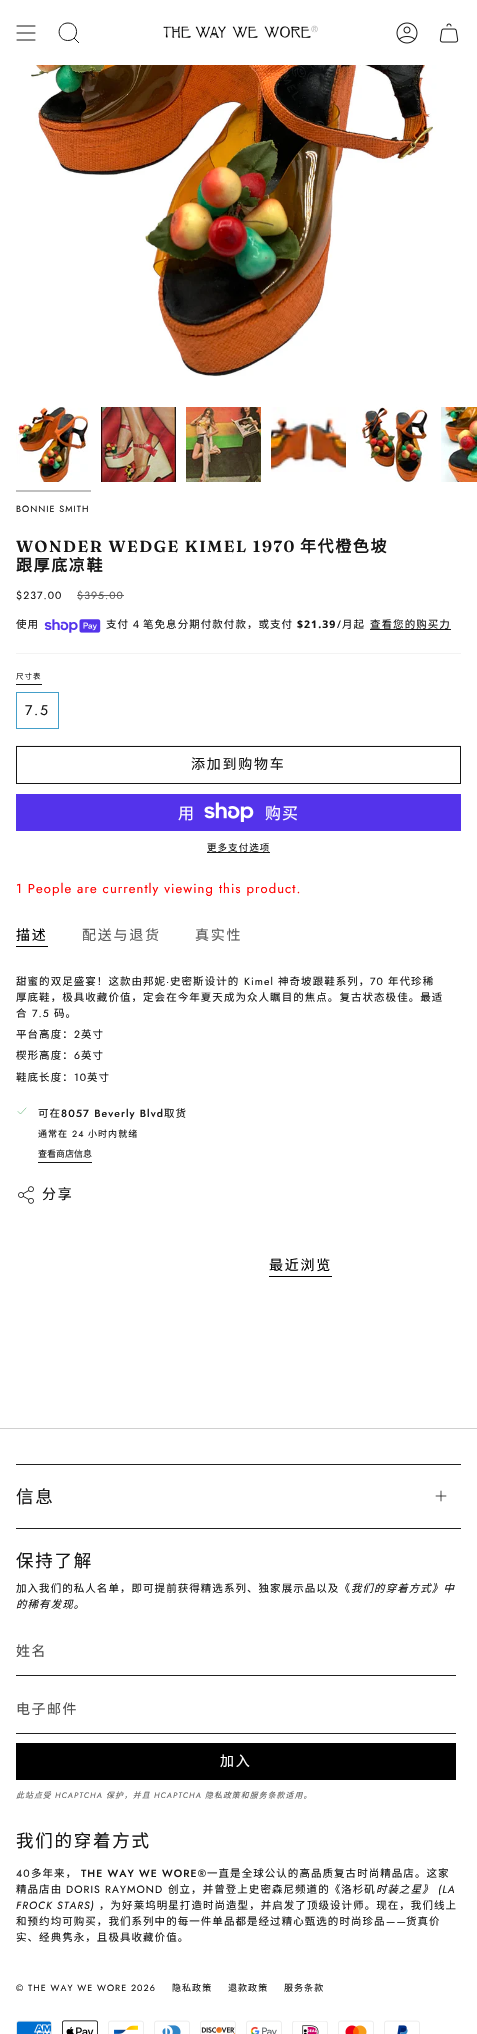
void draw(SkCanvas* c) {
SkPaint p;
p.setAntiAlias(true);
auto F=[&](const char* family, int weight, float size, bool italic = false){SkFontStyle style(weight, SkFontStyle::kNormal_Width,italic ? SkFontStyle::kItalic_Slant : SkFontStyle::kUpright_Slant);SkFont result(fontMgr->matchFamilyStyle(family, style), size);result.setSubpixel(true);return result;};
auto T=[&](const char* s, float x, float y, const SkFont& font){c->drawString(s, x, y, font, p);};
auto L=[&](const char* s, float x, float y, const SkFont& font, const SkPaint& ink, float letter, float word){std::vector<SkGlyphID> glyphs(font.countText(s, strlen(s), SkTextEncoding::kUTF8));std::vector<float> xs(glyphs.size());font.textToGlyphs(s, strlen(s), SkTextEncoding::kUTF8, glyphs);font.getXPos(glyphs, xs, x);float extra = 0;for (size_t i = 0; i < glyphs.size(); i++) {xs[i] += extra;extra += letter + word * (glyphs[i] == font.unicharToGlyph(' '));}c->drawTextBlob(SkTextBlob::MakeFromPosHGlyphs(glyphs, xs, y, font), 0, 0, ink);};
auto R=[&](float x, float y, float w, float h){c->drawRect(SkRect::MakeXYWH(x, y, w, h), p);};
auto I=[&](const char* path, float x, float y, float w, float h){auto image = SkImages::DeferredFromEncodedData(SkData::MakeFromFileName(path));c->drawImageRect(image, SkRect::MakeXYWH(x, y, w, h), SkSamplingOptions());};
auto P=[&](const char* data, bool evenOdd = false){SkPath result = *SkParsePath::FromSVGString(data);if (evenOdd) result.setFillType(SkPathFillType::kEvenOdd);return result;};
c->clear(0xffffffff);
p.setStroke(true);
p.setStrokeWidth(1);
p.setStrokeCap(SkPaint::kRound_Cap);
p.setStrokeJoin(SkPaint::kRound_Join);
p.setColor(0xff161616);
c->drawPath(P("M17 26h18m-18 7h18m-18 7h18"),p);
p.setStrokeCap(SkPaint::kButt_Cap);
p.setStrokeJoin(SkPaint::kMiter_Join);
c->drawPath(P("M68 23c11.5 0 11.5 18-.5 17.5c-11.5-.5-11-17.5 .5-17.5zm6 15l5 5"),p);
I("1.png",163,25,155,13);
I("2.png",396,22,22,22);
I("3.png",439,23,20,20);
I("4.png",31,65,411,312);
I("5.png",16,407,73,75);
p.setStroke(false);
p.setColor(0xffc0c0c0);
R(16,490,75,2);
I("6.png",101,407,75,75);
I("7.png",186,407,75,75);
I("8.png",271,407,75,65);
I("9.png",356,407,72,75);
I("10.png",441,407,36,75);
auto f1 = F("Jost",400,9);
p.setColor(0xff161616);
L("BONNIE SMITH",16,512,f1,p,1.05,0);
auto f2 = F("Fraunces",600,16);
L("WONDER WEDGE KIMEL 1970",16,552,f2,p,1.6,0);
auto f3 = F("Noto Sans CJK SC",700,16);
L("年代橙色坡",300,552,f3,p,1.6,0);
L("跟厚底凉鞋",16,571,f3,p,1.6,0);
auto f4 = F("Jost",400,10.5);
L("$237.00",16,599,f4,p,1.05,0);
p.setColor(0xff5c5c5c);
L("$395.00",77,599,f4,p,1.05,0);
R(77,595,47,1);
auto f5 = F("Noto Sans CJK SC",400,10.5);
p.setColor(0xff161616);
L("使用",16,628,f5,p,1.05,0);
I("11.png",44,619,57,14);
L("支付",106,628,f5,p,1.05,0);
auto f6 = F("Noto Sans",400,10.5);
L("4",133,628,f6,p,1.05,0);
L("笔免息分期付款付款，或支付",143,628,f5,p,1.05,0);
auto f7 = F("Noto Sans",700,10.5);
L("$21.39",297,628,f7,p,1.05,0);
L("/",337,628,f6,p,1.05,0);
L("月起",342,628,f5,p,1.05,0);
L("查看您的购买力",370,628,f5,p,1.05,0);
R(370,629,81,1);
p.setColor(0xfff3f3f3);
R(16,653,445,1);
R(16,745,445,1);
p.setColor(0xff161616);
R(16,684,26,1);
auto f8 = F("Noto Sans CJK SC",400,7.5);
L("尺寸表",16,679,f8,p,1.05,0);
p.setStroke(true);
p.setColor(0xff449fc9);
c->drawRect(SkRect::MakeXYWH(16.5,692.5,42,36),p);
auto f9 = F("Jost",400,14);
p.setStroke(false);
p.setColor(0xff161616);
L("7.5",25,715,f9,p,1.75,0);
p.setStroke(true);
c->drawRect(SkRect::MakeXYWH(16.5,746.5,444,37),p);
auto f10 = F("Noto Sans CJK SC",400,14);
p.setStroke(false);
L("添加到购物车",191,769,f10,p,1.75,0);
p.setColor(0xff5433eb);
R(16,794,445,37);
auto f11 = F("Noto Sans CJK SC",400,16);
p.setColor(0xffffffff);
L("用",178,819,f11,p,1.05,0);
I("12.png",204,802,50,20);
L("购买",265,819,f11,p,1.05,0);
auto f12 = F("Noto Sans CJK SC",400,9.5);
p.setColor(0xff161616);
L("更多支付选项",207,851,f12,p,1.05,0);
R(207,852,63,1);
auto f13 = F("Jost",400,13);
p.setColor(0xffff0000);
L("1 People are currently viewing this product.",16,893,f13,p,1.05,0);
p.setColor(0xff000000);
L("描述",16,940,f10,p,1.75,0);
R(16,946,32,1);
p.setColor(0xff5c5c5c);
L("配送与退货",82,940,f10,p,1.75,0);
L("真实性",195,940,f10,p,1.75,0);
p.setColor(0xff161616);
L("甜蜜的双足盛宴！这款由邦妮",16,985,f5,p,1.05,0);
L("·",166,985,f4,p,1.05,0);
L("史密斯设计的",170,985,f5,p,1.05,0);
L("Kimel",244,985,f4,p,1.05,0);
L("神奇坡跟鞋系列，",278,985,f5,p,1.05,0);
L("70",370,985,f4,p,1.05,0);
L("年代珍稀",388,985,f5,p,1.05,0);
L("厚底鞋，极具收藏价值，定会在今年夏天成为众人瞩目的焦点。复古状态极佳。最适",16,1001,f5,p,1.05,0);
L("合",16,1017,f5,p,1.05,0);
L("7.5",32,1017,f4,p,1.05,0);
L("码。",54,1017,f5,p,1.05,0);
L("平台高度：",16,1038,f5,p,1.05,0);
L("2",74,1038,f4,p,1.05,0);
L("英寸",81,1038,f5,p,1.05,0);
L("楔形高度：",16,1059,f5,p,1.05,0);
L("6",74,1059,f4,p,1.05,0);
L("英寸",81,1059,f5,p,1.05,0);
L("鞋底长度：",16,1081,f5,p,1.05,0);
L("10",74,1081,f4,p,1.05,0);
L("英寸",87,1081,f5,p,1.05,0);
p.setStroke(true);
p.setStrokeWidth(.6);
p.setStrokeCap(SkPaint::kRound_Cap);
p.setStrokeJoin(SkPaint::kRound_Join);
p.setColor(0xff56ad6a);
c->drawPath(P("M18 1111.5l2.5 2.5l5.5-6"),p);
p.setStroke(false);
p.setColor(0xff161616);
L("可在",38,1117,f5,p,1.05,0);
auto f14 = F("Jost",500,10.5);
L("8057 Beverly Blvd",61,1117,f14,p,1.05,0);
L("取货",164,1117,f5,p,1.05,0);
auto f15 = F("Noto Sans CJK SC",400,9);
L("通常在",38,1137,f15,p,1.05,0);
L("24",72,1137,f1,p,1.05,0);
L("小时内就绪",88,1137,f15,p,1.05,0);
R(38,1162,54,1);
T("查看商店信息",38,1157,f15);
I("13.png",18,1186,16,18);
L("分享",42,1199,f10,p,1.75,0);
p.setColor(0xff000000);
L("最近浏览",269,1270,f10,p,1.75,0);
R(269,1276,63,1);
p.setColor(0xffd0d0d0);
R(0,1428,477,1);
p.setColor(0xff212121);
R(16,1464,445,1);
R(16,1528,445,1);
auto f16 = F("Noto Sans CJK SC",400,17.5);
p.setColor(0xff161616);
L("信息",16,1503,f16,p,1.75,0);
I("14.png",435,1490,12,12);
L("保持了解",16,1567,f16,p,1.75,0);
L("加入我们的私人名单，即可提前获得精选系列、独家展示品以及《",16,1592,f5,p,1.05,0);
auto f17 = F("Noto Sans CJK SC",400,10.5,true);
L("我们的穿着方式》中",351,1592,f17,p,1.05,0);
L("的稀有发现。",16,1608,f17,p,1.05,0);
p.setColor(0xff212121);
R(16,1675,440,1);
p.setColor(0xff505050);
L("姓名",16,1656,f10,p,1.5,0);
p.setColor(0xff212121);
R(16,1733,440,1);
p.setColor(0xff505050);
L("电子邮件",16,1714,f10,p,1.5,0);
p.setColor(0xff000000);
R(16,1743,440,37);
p.setColor(0xffffffff);
L("加入",220,1766,f10,p,1.75,0);
auto f18 = F("Noto Sans CJK SC",400,7.9,true);
p.setColor(0xff5c5c5c);
L("此站点受",16,1798,f18,p,1.05,0);
auto f19 = F("Jost",400,7.9,true);
L("HCAPTCHA",55,1798,f19,p,1.05,0);
L("保护，并且",106,1798,f18,p,1.05,0);
L("HCAPTCHA",154,1798,f19,p,1.05,0);
L("隐私政策和服务条款适用。",205,1798,f18,p,1.05,0);
p.setColor(0xff161616);
L("我们的穿着方式",16,1847,f16,p,1.75,0);
L("40",16,1877,f4,p,1.05,0);
L("多年来，",31,1877,f5,p,1.05,0);
L("THE WAY WE WORE®",81,1877,f14,p,1.05,0);
L("一直是全球公认的高品质复古时尚精品店。这家",207,1877,f5,p,1.05,0);
L("精品店由",16,1893,f5,p,1.05,0);
L("DORIS RAYMOND",66,1893,f4,p,1.05,0);
L("创立，并曾登上史密森尼频道的《洛杉矶",168,1893,f5,p,1.05,0);
L("时装之星》",376,1893,f17,p,1.05,0);
auto f20 = F("Jost",400,10.5,true);
L("(LA",438,1893,f20,p,1.05,0);
L("FROCK STARS)",16,1909,f20,p,1.05,0);
L("，为好莱坞明星打造时尚造型，并启发了顶级设计师。现在，我们线上",99,1909,f5,p,1.05,0);
L("和预约均可购买，我们系列中的每一件单品都是经过精心甄选的时尚珍品",16,1925,f5,p,1.05,0);
L("——",386,1925,f4,p,1.05,0);
L("货真价",406,1925,f5,p,1.05,0);
L("实、经典隽永，且极具收藏价值。",16,1941,f5,p,1.05,0);
L("© THE WAY WE WORE 2026",16,1991,f1,p,1.05,0);
L("隐私政策",172,1991,f15,p,1.05,0);
L("退款政策",228,1991,f15,p,1.05,0);
L("服务条款",284,1991,f15,p,1.05,0);
I("15.png",16,2020,36,14);
I("16.png",62,2020,36,14);
I("17.png",108,2020,36,14);
I("18.png",154,2020,36,14);
I("19.png",200,2020,36,14);
I("20.png",246,2020,36,14);
I("21.png",292,2021,36,13);
I("22.png",338,2020,36,14);
I("23.png",384,2020,36,14);
}
